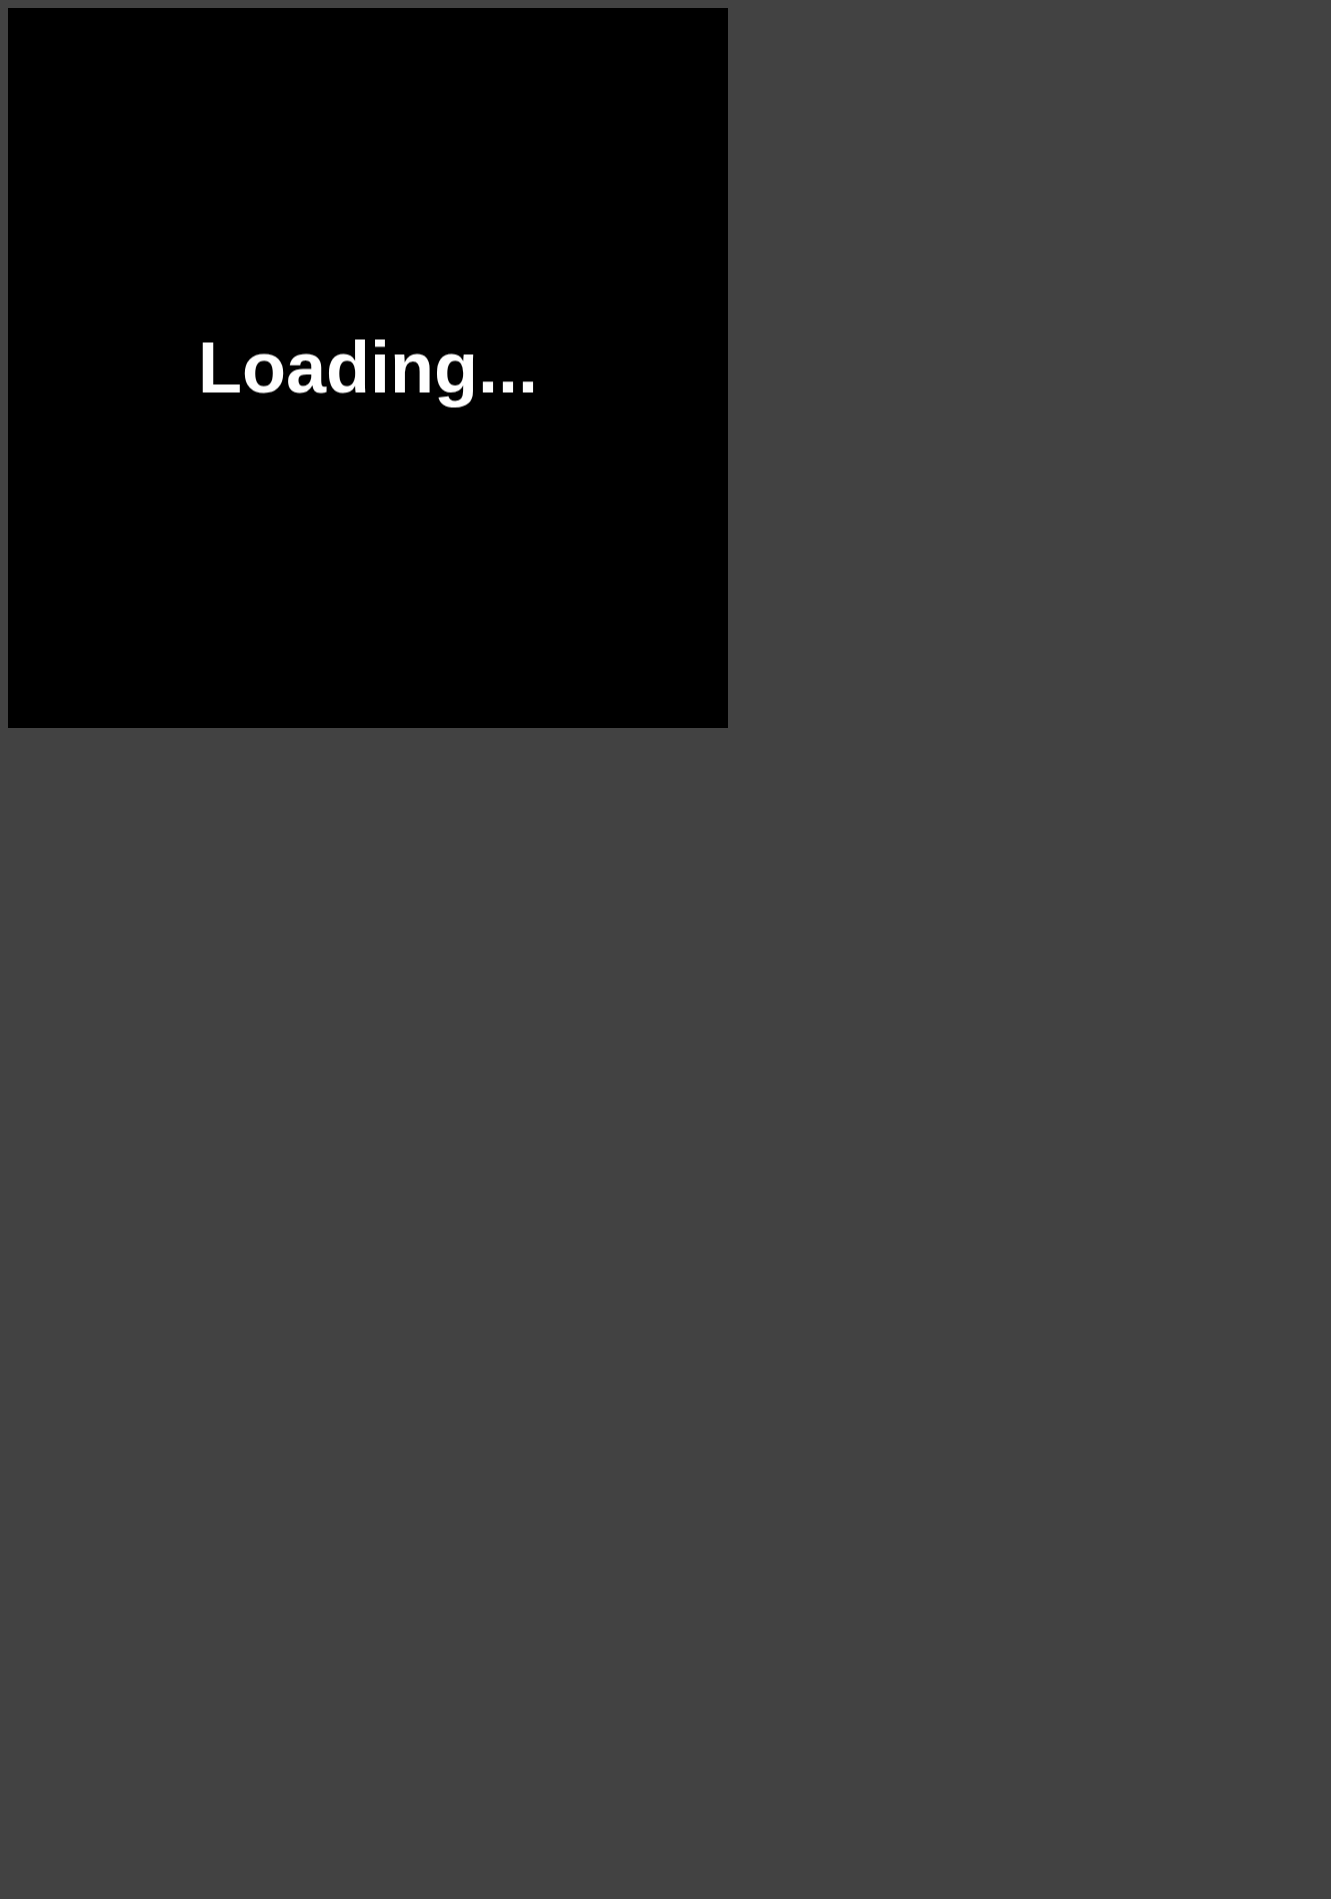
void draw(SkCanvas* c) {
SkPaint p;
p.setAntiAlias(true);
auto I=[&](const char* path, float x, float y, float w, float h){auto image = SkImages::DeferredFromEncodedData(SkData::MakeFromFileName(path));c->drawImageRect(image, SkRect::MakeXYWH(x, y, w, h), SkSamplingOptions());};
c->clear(0xff424242);
I("1.png",8,8,720,720);
}
